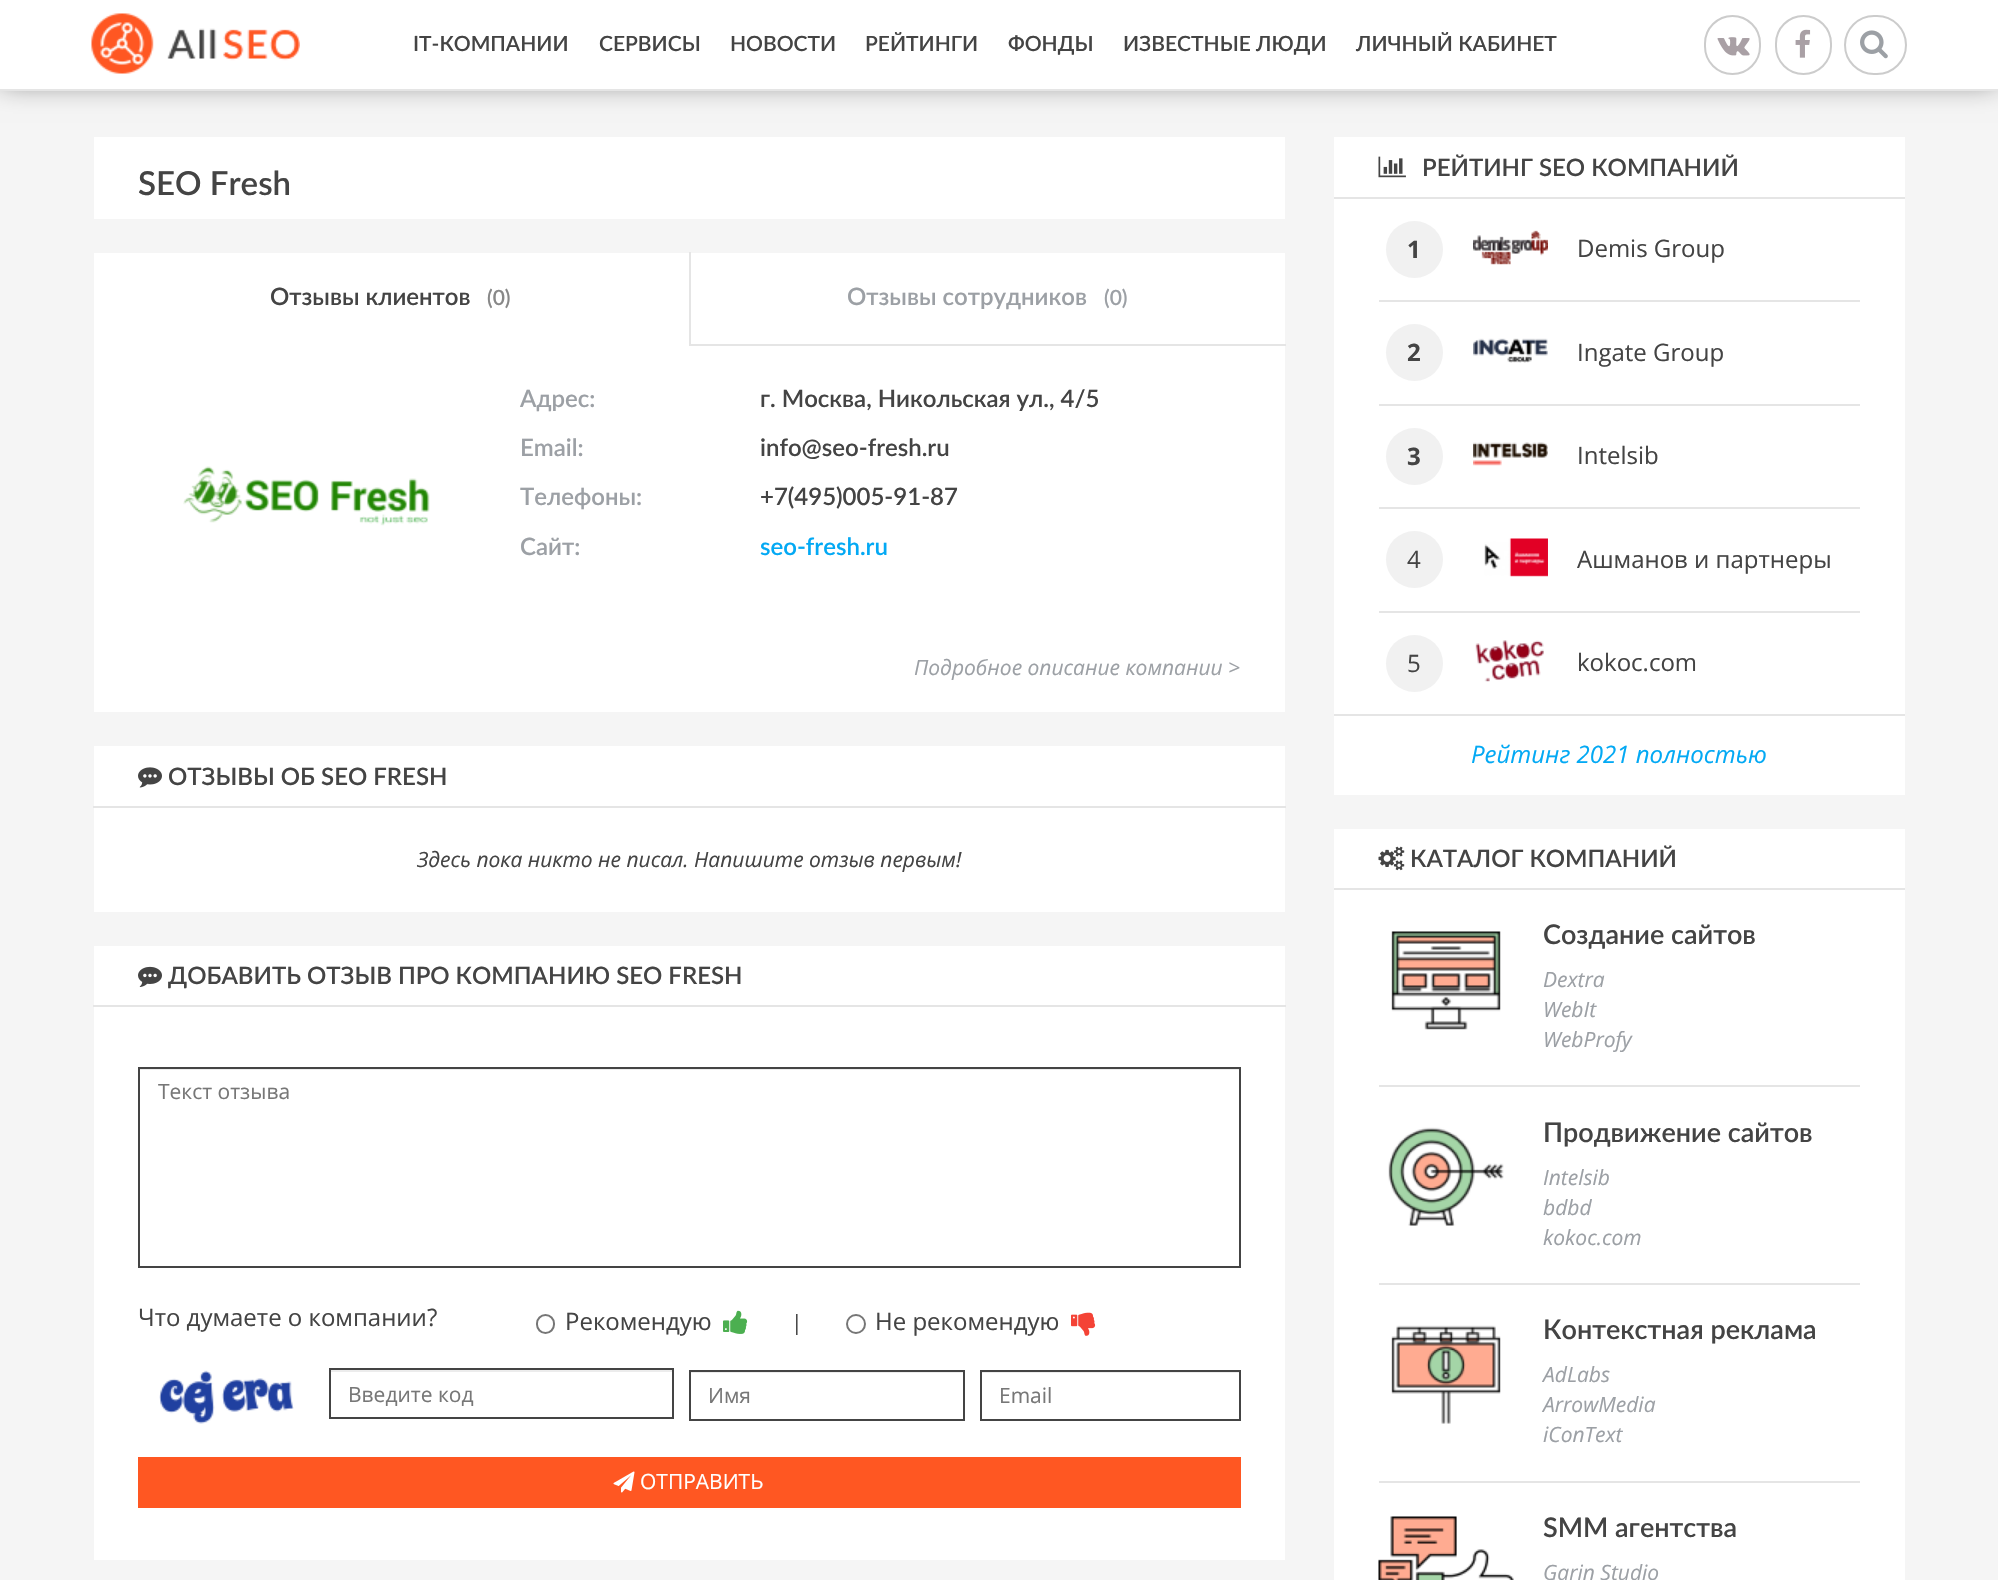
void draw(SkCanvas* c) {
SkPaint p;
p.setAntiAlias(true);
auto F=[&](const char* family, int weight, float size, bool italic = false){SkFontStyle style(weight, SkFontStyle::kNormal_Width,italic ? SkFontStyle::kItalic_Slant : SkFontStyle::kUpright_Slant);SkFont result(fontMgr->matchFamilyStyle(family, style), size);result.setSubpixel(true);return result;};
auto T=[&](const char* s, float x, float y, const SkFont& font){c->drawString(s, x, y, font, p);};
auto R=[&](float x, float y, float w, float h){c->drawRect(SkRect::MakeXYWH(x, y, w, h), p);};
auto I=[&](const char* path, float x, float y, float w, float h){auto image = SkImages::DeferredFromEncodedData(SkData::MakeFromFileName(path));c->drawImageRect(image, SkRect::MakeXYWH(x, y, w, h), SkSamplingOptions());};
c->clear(0xfff5f5f5);
p.setColor(0x80000000);
p.setMaskFilter(SkMaskFilter::MakeBlur(kNormal_SkBlurStyle, 13.5));
c->drawRect(SkRect::MakeXYWH(0,-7,1998,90),p);
p.setMaskFilter(nullptr);
p.setColor(0xffffffff);
R(0,0,1998,89);
p.setColor(0xffe5e5e5);
R(0,89,1998,2);
I("1.png",91,13,209,61);
auto f1 = F("Lato",600,21);
p.setColor(0xff444444);
T("IT-КОМПАНИИ",413,51,f1);
T("СЕРВИСЫ",599,51,f1);
T("НОВОСТИ",730,51,f1);
T("РЕЙТИНГИ",865,51,f1);
T("ФОНДЫ",1008,51,f1);
T("ИЗВЕСТНЫЕ ЛЮДИ",1123,51,f1);
T("ЛИЧНЫЙ КАБИНЕТ",1356,51,f1);
p.setStroke(true);
p.setStrokeWidth(2);
p.setColor(0xffcccccc);
c->drawRoundRect(SkRect::MakeXYWH(1705,16,55,58),27.5,27.5,p);
I("2.png",1717,37,33,19);
c->drawRoundRect(SkRect::MakeXYWH(1776,16,55,58),27.5,27.5,p);
I("3.png",1795,29,16,29);
I("4.png",1860,30,28,29);
c->drawRoundRect(SkRect::MakeXYWH(1845,16,61,58),29,29,p);
p.setStroke(false);
p.setColor(0xffffffff);
R(94,137,1191,82);
auto f2 = F("Lato",600,33);
p.setColor(0xff444444);
T("SEO Fresh",138,195,f2);
p.setColor(0xffffffff);
R(94,253,1191,459);
auto f3 = F("Lato",600,24);
p.setColor(0xff444444);
T("Отзывы клиентов",270,305,f3);
p.setColor(0xff888888);
T("(0)",487,305,f1);
p.setColor(0xffe5e5e5);
R(689,344,597,2);
R(689,252,2,93);
p.setColor(0xff9ca0a5);
T("Отзывы сотрудников",847,305,f3);
T("(0)",1104,305,f1);
I("5.png",183,466,247,60);
T("Адрес:",520,407,f3);
p.setColor(0xff444444);
T("г. Москва, Никольская ул., 4/5",760,407,f3);
p.setColor(0xff9ca0a5);
T("Email:",520,456,f3);
p.setColor(0xff444444);
T("info@seo-fresh.ru",760,456,f3);
p.setColor(0xff9ca0a5);
T("Телефоны:",520,505,f3);
p.setColor(0xff444444);
T("+7(495)005-91-87",760,505,f3);
p.setColor(0xff9ca0a5);
T("Сайт:",520,555,f3);
p.setColor(0xff03a9f4);
T("seo-fresh.ru",760,555,f3);
auto f4 = F("Open Sans",400,21,true);
p.setColor(0xff9ca0a5);
T("Подробное описание компании >",914,675,f4);
p.setColor(0xffffffff);
R(94,746,1191,166);
p.setColor(0xffe5e5e5);
R(93,806,1193,2);
I("6.png",138,767,24,21);
p.setColor(0xff444444);
T("ОТЗЫВЫ ОБ SEO FRESH",168,785,f3);
T("Здесь пока никто не писал. Напишите отзыв первым!",417,867,f4);
p.setColor(0xffffffff);
R(94,946,1191,614);
p.setColor(0xffe5e5e5);
R(93,1005,1193,2);
I("7.png",138,966,24,21);
p.setColor(0xff444444);
T("ДОБАВИТЬ ОТЗЫВ ПРО КОМПАНИЮ SEO FRESH",168,984,f3);
p.setColor(0xffececec);
R(140,1069,1099,1);
p.setStroke(true);
p.setColor(0xff444444);
c->drawRect(SkRect::MakeXYWH(139,1068,1101,199),p);
auto f5 = F("Open Sans",400,21);
p.setStroke(false);
p.setColor(0xff777777);
T("Текст отзыва",158,1099,f5);
auto f6 = F("Open Sans",400,24);
p.setColor(0xff444444);
T("Что думаете о компании?",138,1326,f6);
p.setStroke(true);
p.setColor(0xff767676);
c->drawRoundRect(SkRect::MakeXYWH(537,1315,17,18),8.5,8.5,p);
p.setStroke(false);
p.setColor(0xff444444);
T("Рекомендую",565,1330,f6);
I("8.png",723,1310,25,24);
T("|",791,1330,f5);
p.setStroke(true);
p.setColor(0xff767676);
c->drawCircle(856,1324,9,p);
p.setStroke(false);
p.setColor(0xff444444);
T("Не рекомендую",875,1330,f6);
I("9.png",1071,1312,25,24);
I("10.png",159,1370,135,54);
p.setColor(0xffececec);
R(330,1370,342,2);
p.setStroke(true);
p.setColor(0xff444444);
c->drawRect(SkRect::MakeXYWH(330,1369,343,49),p);
p.setStroke(false);
p.setColor(0xff777777);
T("Введите код",348,1402,f5);
p.setColor(0xffececec);
R(690,1372,273,1);
p.setStroke(true);
p.setColor(0xff444444);
c->drawRect(SkRect::MakeXYWH(690,1371,274,49),p);
p.setStroke(false);
p.setColor(0xff777777);
T("Имя",708,1403,f5);
p.setColor(0xffececec);
R(981,1372,258,1);
p.setStroke(true);
p.setColor(0xff444444);
c->drawRect(SkRect::MakeXYWH(981,1371,259,49),p);
p.setStroke(false);
p.setColor(0xff777777);
T("Email",999,1403,f5);
p.setColor(0xffff5722);
R(138,1457,1103,51);
I("11.png",613,1471,22,22);
p.setColor(0xffffffff);
T("ОТПРАВИТЬ",640,1489,f5);
R(1334,137,571,658);
p.setColor(0xffe5e5e5);
R(1334,197,571,2);
I("12.png",1378,156,28,22);
p.setColor(0xff444444);
T("РЕЙТИНГ SEO КОМПАНИЙ",1422,176,f3);
p.setColor(0xffe5e5e5);
R(1379,300,481,2);
p.setColor(0xfff1f1f1);
c->drawCircle(1414.5,249.5,28.5,p);
auto f7 = F("Open Sans",700,24);
p.setColor(0xff444444);
T("1",1407,258,f7);
I("13.png",1473,230,75,35);
T("Demis Group",1577,257,f6);
p.setColor(0xffe5e5e5);
R(1379,404,481,2);
p.setColor(0xfff1f1f1);
c->drawCircle(1414.5,352.5,28.5,p);
p.setColor(0xff444444);
T("2",1407,361,f7);
I("14.png",1473,338,75,25);
T("Ingate Group",1577,361,f6);
p.setColor(0xffe5e5e5);
R(1379,507,481,2);
p.setColor(0xfff1f1f1);
c->drawCircle(1414.5,456.5,28.5,p);
p.setColor(0xff444444);
T("3",1407,465,f7);
I("15.png",1473,442,75,24);
T("Intelsib",1577,464,f6);
p.setColor(0xffe5e5e5);
R(1379,611,481,2);
p.setColor(0xfff1f1f1);
c->drawCircle(1414.5,559.5,28.5,p);
p.setColor(0xff444444);
T("4",1407,568,f6);
I("16.png",1484,538,64,39);
T("Ашманов и партнеры",1577,568,f6);
p.setColor(0xfff1f1f1);
c->drawCircle(1414.5,663.5,28.5,p);
p.setColor(0xff444444);
T("5",1407,672,f6);
I("17.png",1475,640,69,42);
T("kokoc.com",1577,671,f6);
p.setColor(0xffe5e5e5);
R(1334,714,571,2);
auto f8 = F("Open Sans",400,24,true);
p.setColor(0xff03a9f4);
T("Рейтинг 2021 полностью",1471,763,f8);
p.setColor(0xffffffff);
R(1334,829,571,751);
p.setColor(0xffe5e5e5);
R(1334,888,571,2);
I("18.png",1378,846,27,25);
p.setColor(0xff444444);
T("КАТАЛОГ КОМПАНИЙ",1410,867,f3);
p.setColor(0xffe5e5e5);
R(1379,1085,481,2);
I("19.png",1391,931,110,99);
auto f9 = F("Lato",600,27);
p.setColor(0xff444444);
T("Создание сайтов",1543,944,f9);
p.setColor(0xff9ca0a5);
T("Dextra",1543,987,f4);
T("WebIt",1543,1017,f4);
T("WebProfy",1543,1047,f4);
p.setColor(0xffe5e5e5);
R(1379,1283,481,2);
I("20.png",1388,1127,116,99);
p.setColor(0xff444444);
T("Продвижение сайтов",1543,1142,f9);
p.setColor(0xff9ca0a5);
T("Intelsib",1543,1185,f4);
T("bdbd",1543,1215,f4);
T("kokoc.com",1543,1245,f4);
p.setColor(0xffe5e5e5);
R(1379,1481,481,2);
I("21.png",1391,1325,110,99);
p.setColor(0xff444444);
T("Контекстная реклама",1543,1339,f9);
p.setColor(0xff9ca0a5);
T("AdLabs",1543,1382,f4);
T("ArrowMedia",1543,1412,f4);
T("iConText",1543,1442,f4);
I("22.png",1378,1516,136,64);
p.setColor(0xff444444);
T("SMM агентства",1543,1537,f9);
p.setColor(0xff9ca0a5);
T("Garin Studio",1543,1580,f4);
}
